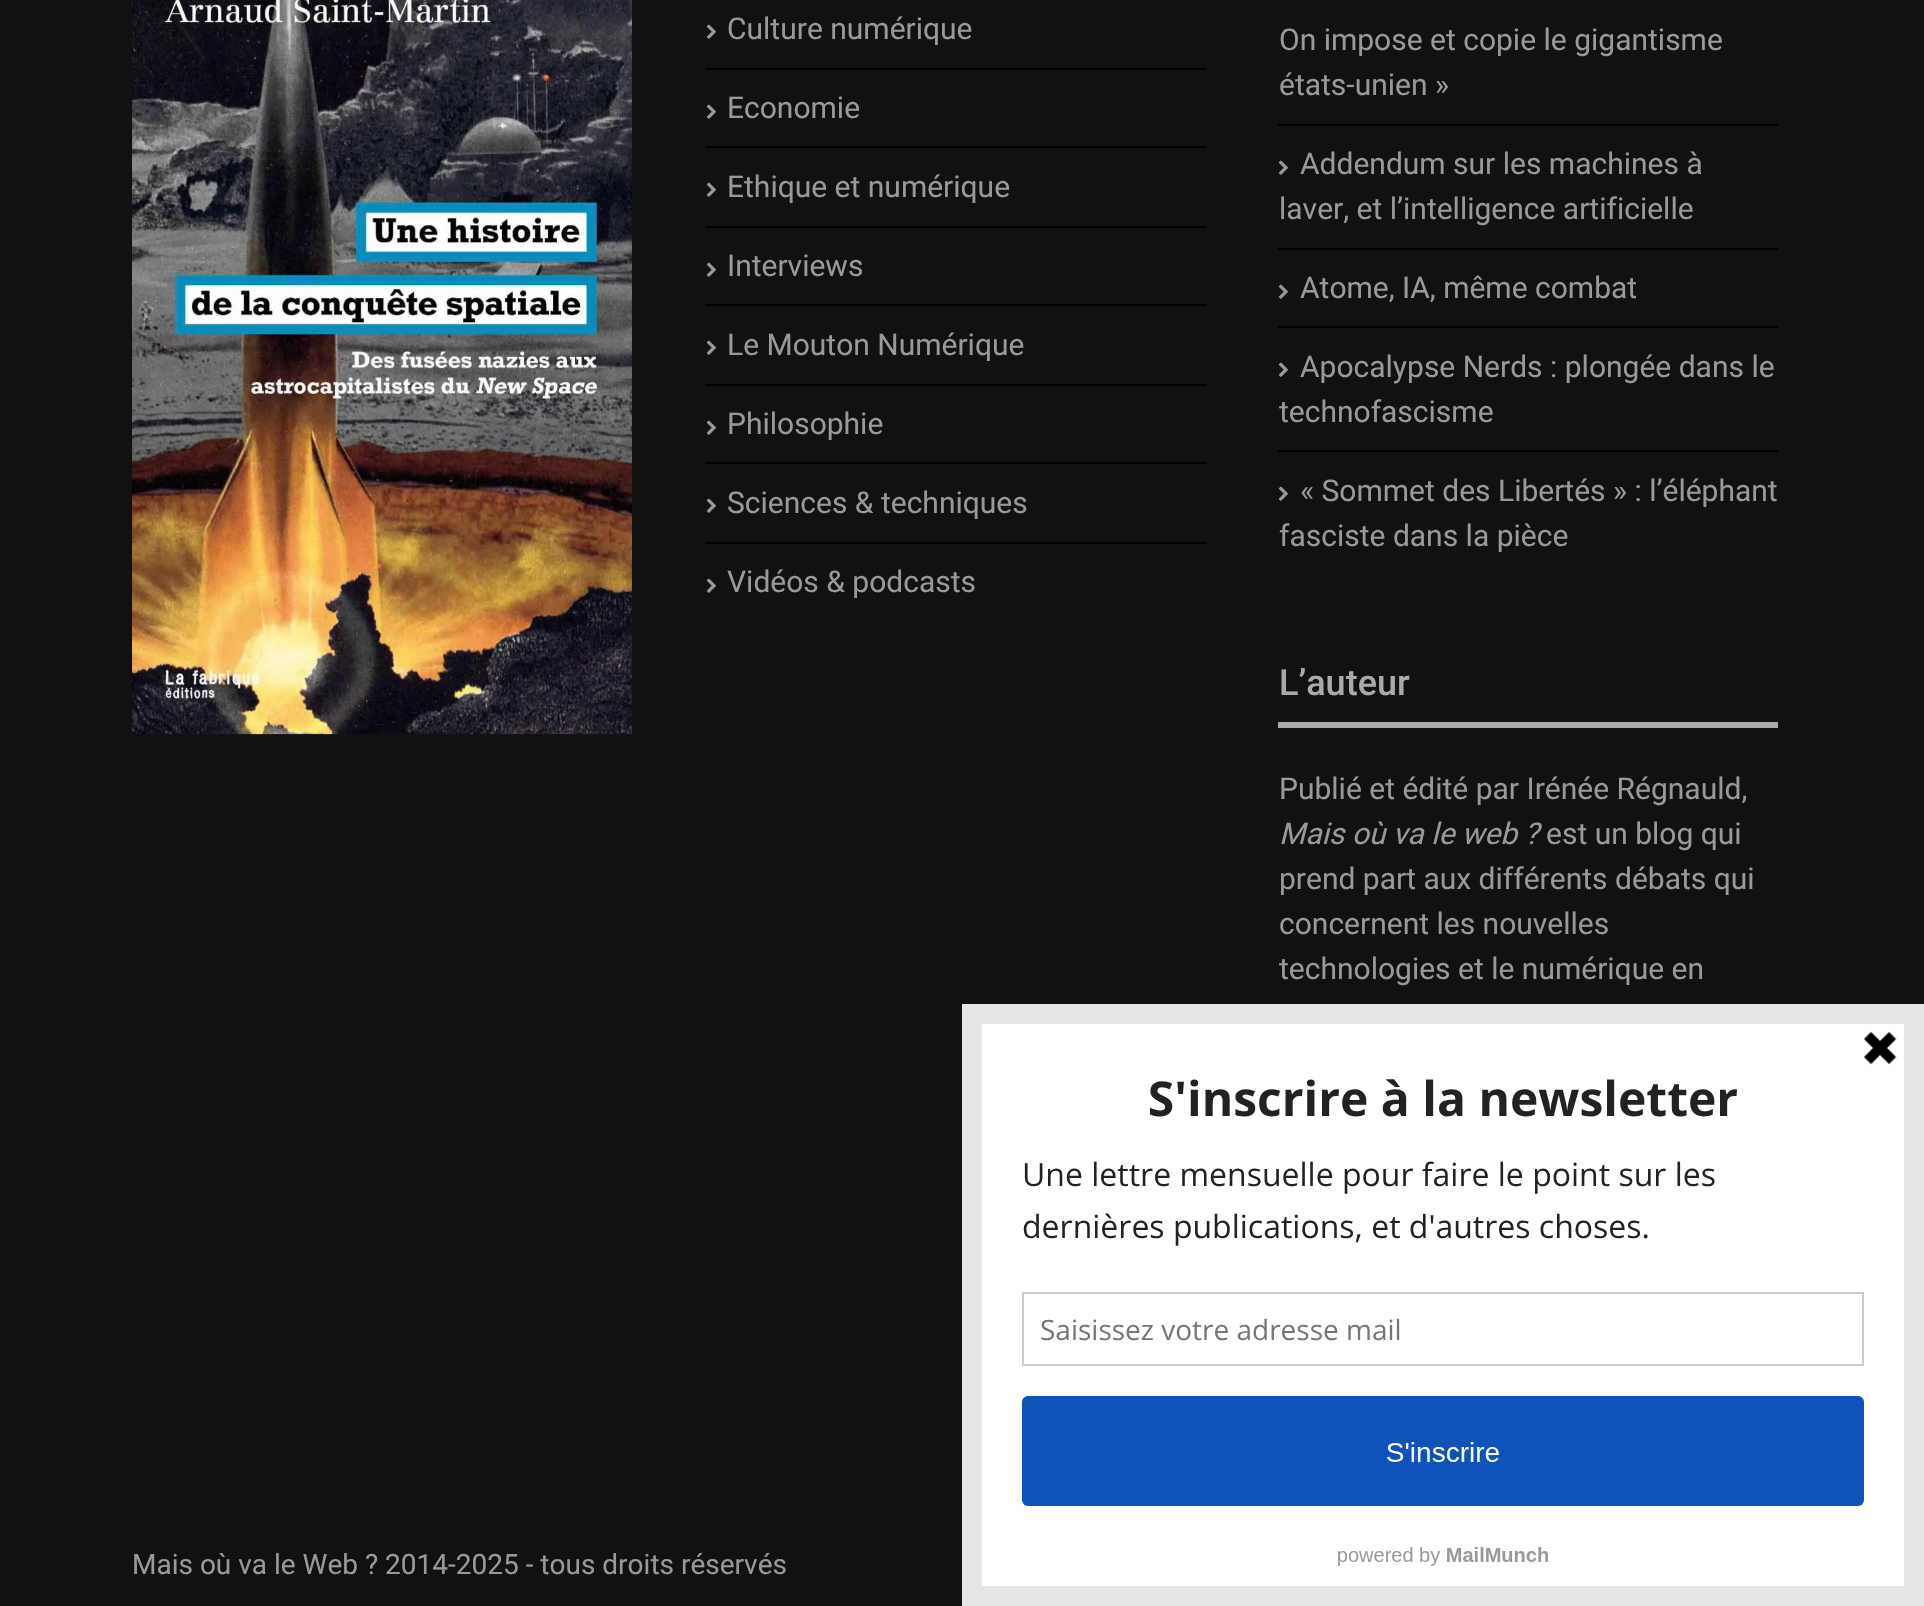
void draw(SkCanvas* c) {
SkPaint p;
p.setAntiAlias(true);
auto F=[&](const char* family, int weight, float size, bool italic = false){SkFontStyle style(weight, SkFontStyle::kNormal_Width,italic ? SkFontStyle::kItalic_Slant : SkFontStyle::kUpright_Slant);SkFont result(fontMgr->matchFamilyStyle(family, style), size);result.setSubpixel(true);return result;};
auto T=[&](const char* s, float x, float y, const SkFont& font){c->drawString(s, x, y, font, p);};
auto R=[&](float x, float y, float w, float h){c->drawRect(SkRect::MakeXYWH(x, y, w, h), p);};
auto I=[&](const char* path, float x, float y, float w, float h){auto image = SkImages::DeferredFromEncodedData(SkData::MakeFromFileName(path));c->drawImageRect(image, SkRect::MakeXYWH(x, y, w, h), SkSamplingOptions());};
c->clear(0xff111111);
I("1.png",132,0,500,735);
p.setColor(0xff000000);
R(706,68,500,2);
I("2.png",706,24,10,15);
auto f1 = F("Roboto",400,30);
p.setColor(0xff999999);
T("Culture numérique",727,39,f1);
p.setColor(0xff000000);
R(706,146,500,2);
I("2.png",706,104,10,15);
p.setColor(0xff999999);
T("Economie",727,118,f1);
p.setColor(0xff000000);
R(706,226,500,2);
I("2.png",706,182,10,15);
p.setColor(0xff999999);
T("Ethique et numérique",727,197,f1);
p.setColor(0xff000000);
R(706,304,500,2);
I("2.png",706,262,10,15);
p.setColor(0xff999999);
T("Interviews",727,276,f1);
p.setColor(0xff000000);
R(706,384,500,2);
I("2.png",706,340,10,15);
p.setColor(0xff999999);
T("Le Mouton Numérique",727,355,f1);
p.setColor(0xff000000);
R(706,462,500,2);
I("2.png",706,420,10,15);
p.setColor(0xff999999);
T("Philosophie",727,434,f1);
p.setColor(0xff000000);
R(706,542,500,2);
I("2.png",706,498,10,15);
p.setColor(0xff999999);
T("Sciences & techniques",727,513,f1);
I("2.png",706,578,10,15);
T("Vidéos & podcasts",727,592,f1);
p.setColor(0xff000000);
R(1278,124,500,2);
p.setColor(0xff999999);
T("On impose et copie le gigantisme",1279,50,f1);
T("états-unien »",1279,95,f1);
p.setColor(0xff000000);
R(1278,248,500,2);
I("2.png",1278,160,10,15);
p.setColor(0xff999999);
T("Addendum sur les machines à",1300,174,f1);
T("laver, et l’intelligence artificielle",1279,219,f1);
p.setColor(0xff000000);
R(1278,326,500,2);
I("2.png",1278,284,10,15);
p.setColor(0xff999999);
T("Atome, IA, même combat",1300,298,f1);
p.setColor(0xff000000);
R(1278,450,500,2);
I("2.png",1278,362,10,15);
p.setColor(0xff999999);
T("Apocalypse Nerds : plongée dans le",1300,377,f1);
T("technofascisme",1279,422,f1);
I("2.png",1278,486,10,15);
T("« Sommet des Libertés » : l’éléphant",1300,501,f1);
T("fasciste dans la pièce",1279,546,f1);
p.setColor(0xffaaaaaa);
R(1278,722,500,6);
auto f2 = F("Roboto",500,36);
T("L’auteur",1279,695,f2);
p.setColor(0xff999999);
T("Publié et édité par Irénée Régnauld,",1279,799,f1);
auto f3 = F("Roboto",400,30,true);
T("Mais où va le web ?",1279,844,f3);
T("est un blog qui",1546,844,f1);
T("prend part aux différents débats qui",1279,889,f1);
T("concernent les nouvelles",1279,934,f1);
T("technologies et le numérique en",1279,979,f1);
auto f4 = F("Roboto",400,28);
T("Mais où va le Web ? 2014-2025 - tous droits réservés",132,1574,f4);
I("3.png",962,1004,962,602);
}
